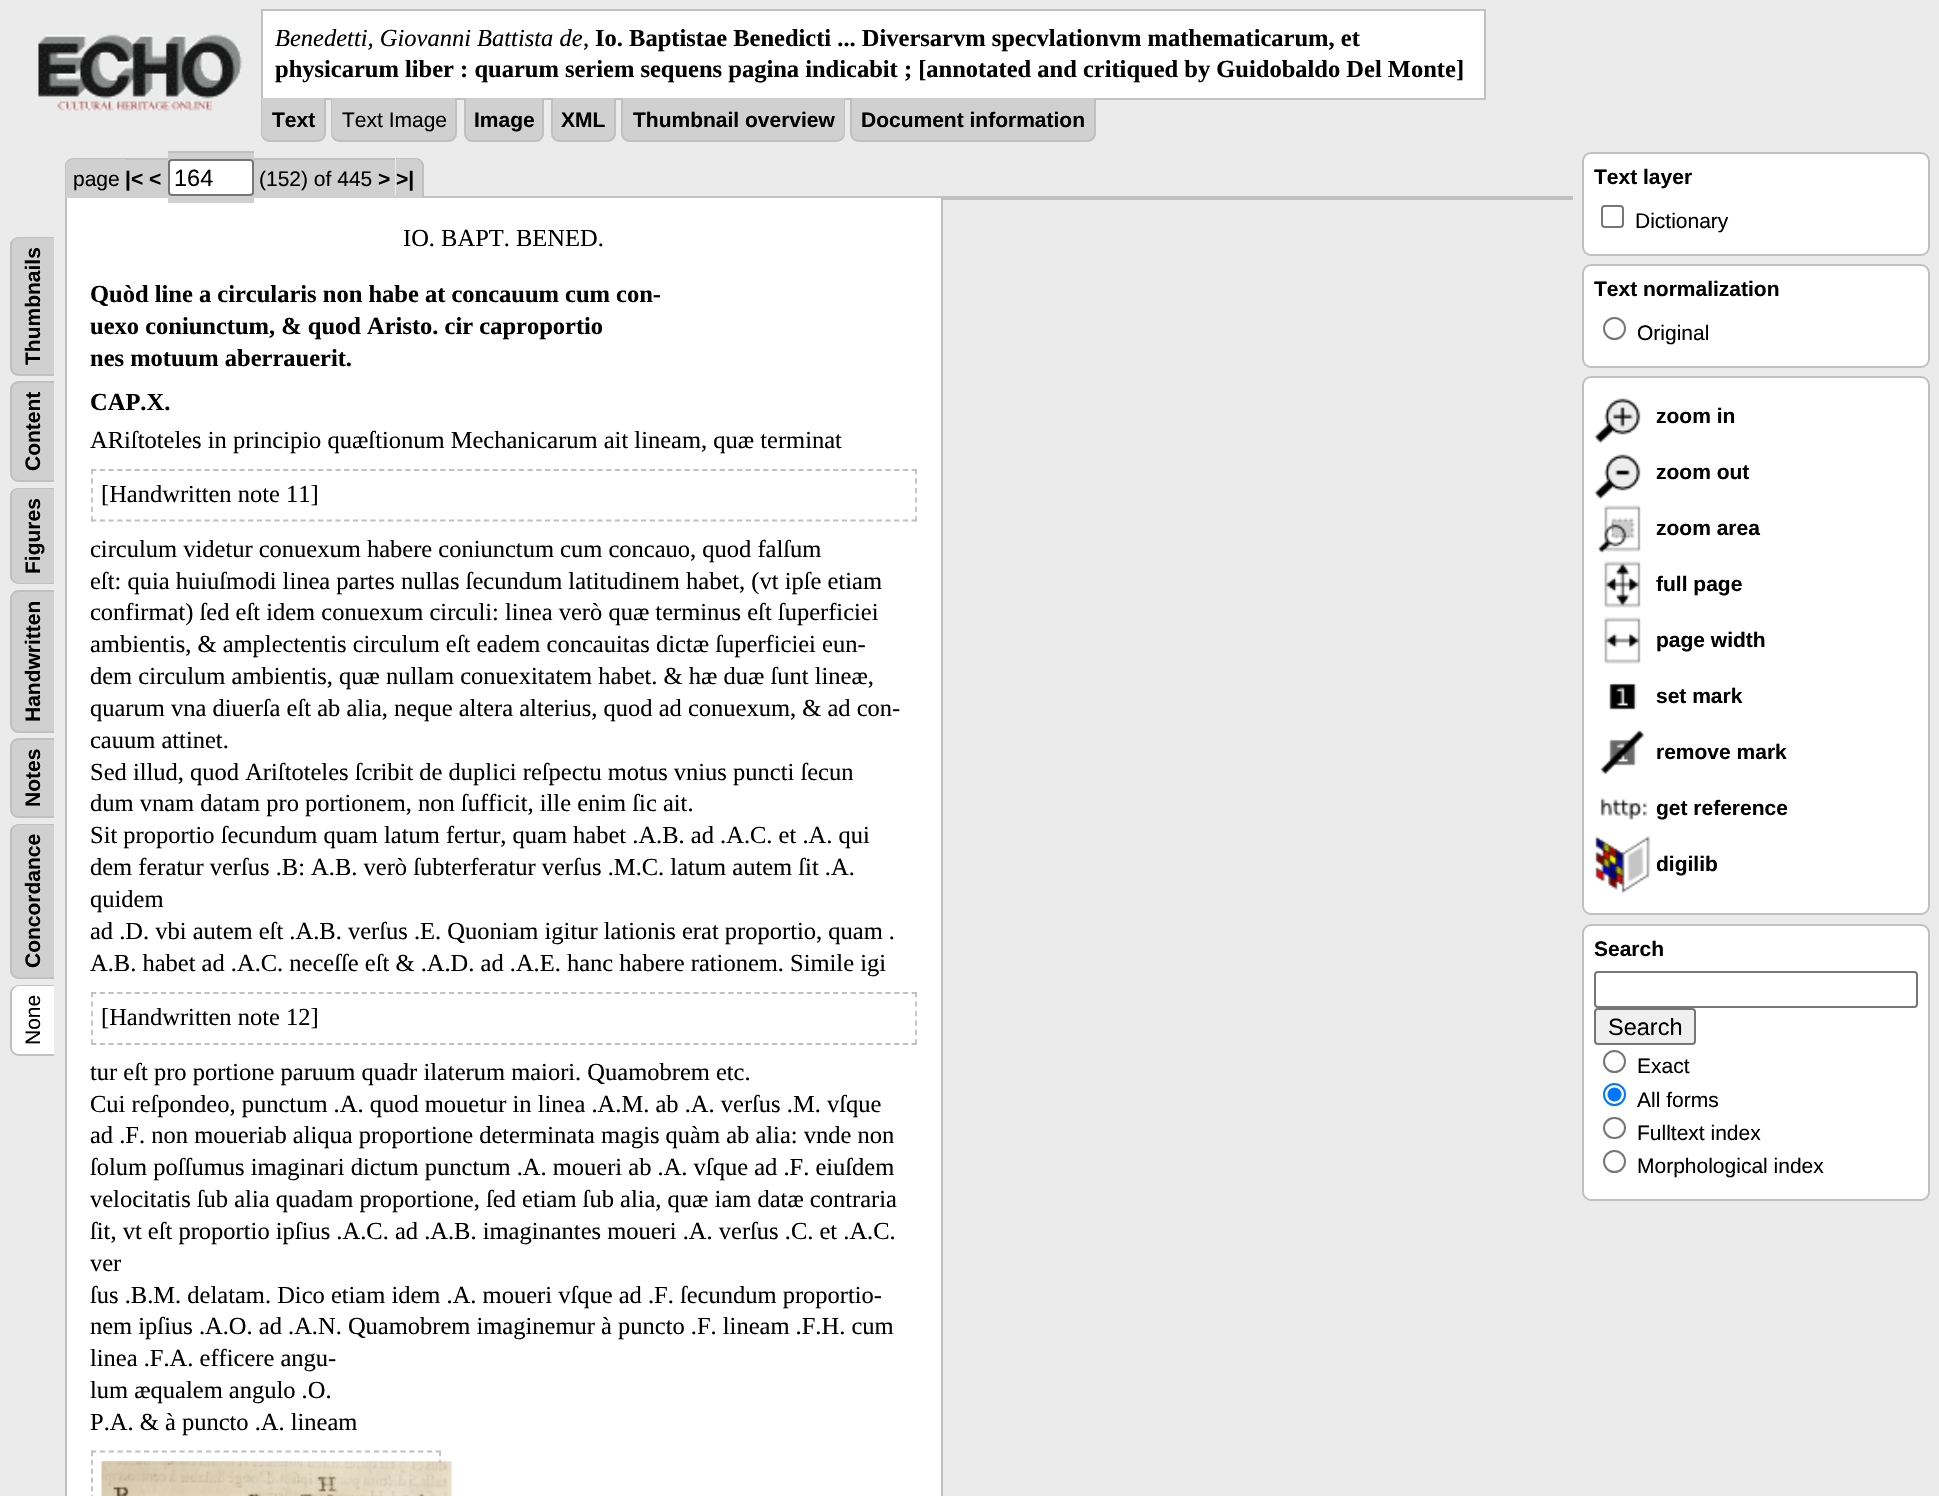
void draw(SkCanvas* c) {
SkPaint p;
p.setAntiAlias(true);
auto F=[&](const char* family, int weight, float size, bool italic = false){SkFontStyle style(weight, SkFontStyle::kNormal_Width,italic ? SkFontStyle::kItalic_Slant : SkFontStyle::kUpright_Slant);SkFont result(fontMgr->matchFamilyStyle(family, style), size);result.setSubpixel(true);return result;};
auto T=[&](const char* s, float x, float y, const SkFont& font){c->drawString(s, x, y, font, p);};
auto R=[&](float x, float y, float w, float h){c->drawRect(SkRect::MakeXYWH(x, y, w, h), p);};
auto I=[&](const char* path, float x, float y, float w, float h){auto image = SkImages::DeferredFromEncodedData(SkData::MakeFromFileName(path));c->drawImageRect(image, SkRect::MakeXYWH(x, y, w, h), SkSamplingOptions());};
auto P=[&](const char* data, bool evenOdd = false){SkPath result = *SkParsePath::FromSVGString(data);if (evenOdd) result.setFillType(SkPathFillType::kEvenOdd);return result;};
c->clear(0xffebebeb);
I("1.png",38,34,204,77);
p.setColor(0xffffffff);
c->drawRect(SkRect::MakeXYWH(262,10,1223,89),p);
p.setStroke(true);
p.setStrokeWidth(2);
p.setColor(0xffc0c0c0);
c->drawRect(SkRect::MakeXYWH(262,10,1223,89),p);
auto f1 = F("Liberation Serif",400,24.5,true);
p.setStroke(false);
p.setColor(0xff000000);
T("Benedetti, Giovanni Battista de",275,46,f1);
auto f2 = F("Liberation Serif",400,24.5);
T(",",583,46,f2);
auto f3 = F("Liberation Serif",700,24.5);
T("Io. Baptistae Benedicti ... Diversarvm specvlationvm mathematicarum, et",595,46,f3);
T("physicarum liber : quarum seriem sequens pagina indicabit ; [annotated and critiqued by Guidobaldo Del Monte]",275,77,f3);
p.setColor(0xffd0d0d0);
c->drawPath(P("M261 98h65v35c0 5-4 9-9 9h-47c-5 0-9-4-9-9z"),p);
p.setColor(0xffc0c0c0);
c->drawPath(P("M261 98h65v35c0 5-4 9-9 9h-47c-5 0-9-4-9-9zm1 0h62v35c0 4-3 7-7 7h-47c-4 0-8-3-8-7z",true),p);
auto f4 = F("Liberation Sans",700,21);
p.setColor(0xff000000);
T("Text",272,127,f4);
p.setColor(0xffd0d0d0);
c->drawPath(P("M331 98h126v35c0 5-4 9-9 9h-108c-5 0-9-4-9-9z"),p);
p.setColor(0xffc0c0c0);
c->drawPath(P("M331 98h126v35c0 5-4 9-9 9h-108c-5 0-9-4-9-9zm1 0h123v35c0 4-3 7-7 7h-108c-4 0-8-3-8-7z",true),p);
auto f5 = F("Liberation Sans",400,21);
p.setColor(0xff000000);
T("Text Image",342,127,f5);
p.setColor(0xffd0d0d0);
c->drawPath(P("M464 98h80v35c0 5-4 9-9 9h-62c-5 0-9-4-9-9z"),p);
p.setColor(0xffc0c0c0);
c->drawPath(P("M464 98h80v35c0 5-4 9-8 9h-64c-4 0-8-4-8-9zm2 0h76v35c0 4-3 7-6 7h-64c-3 0-6-3-6-7z",true),p);
p.setColor(0xff000000);
T("Image",474,127,f4);
p.setColor(0xffd0d0d0);
c->drawPath(P("M551 98h65v35c0 5-4 9-9 9h-47c-5 0-9-4-9-9z"),p);
p.setColor(0xffc0c0c0);
c->drawPath(P("M551 98h65v35c0 5-4 9-9 9h-47c-5 0-9-4-9-9zm2 0h61v35c0 4-3 7-7 7h-47c-4 0-7-3-7-7z",true),p);
p.setColor(0xff000000);
T("XML",561,127,f4);
p.setColor(0xffd0d0d0);
c->drawPath(P("M621 98h224v35c0 5-4 9-9 9h-206c-5 0-9-4-9-9z"),p);
p.setColor(0xffc0c0c0);
c->drawPath(P("M621 98h224v35c0 5-4 9-9 9h-206c-5 0-9-4-9-9zm2 0h221v35c0 4-4 7-8 7h-206c-4 0-7-3-7-7z",true),p);
p.setColor(0xff000000);
T("Thumbnail overview",633,127,f4);
p.setColor(0xffd0d0d0);
c->drawPath(P("M851 98h245v35c0 5-4 9-9 9h-227c-5 0-9-4-9-9z"),p);
p.setColor(0xffc0c0c0);
c->drawPath(P("M850 98h246v35c0 5-4 9-9 9h-228c-5 0-9-4-9-9zm2 0h242v35c0 4-3 7-7 7h-228c-4 0-7-3-7-7z",true),p);
p.setColor(0xff000000);
T("Document information",861,127,f4);
p.setColor(0xffd0d0d0);
c->drawPath(P("M10 367v-122c0-4 4-8 9-8h35v139h-35c-5 0-9-4-9-9z"),p);
p.setColor(0xffc0c0c0);
c->drawPath(P("M10 367v-122c0-4 4-8 9-8h35v139h-35c-5 0-9-4-9-9zm2 0v-122c0-3 3-7 7-7h35v136h-35c-4 0-7-3-7-7z",true),p);
p.setColor(0xff000000);
c->save();
c->rotate(-90,40,365);
T("Thumbnails",40,365,f4);
c->restore();
p.setColor(0xffd0d0d0);
c->drawPath(P("M10 473v-83c0-5 4-9 9-9h35v101h-35c-5 0-9-4-9-9z"),p);
p.setColor(0xffc0c0c0);
c->drawPath(P("M10 473v-83c0-5 4-9 9-9h35v101h-35c-5 0-9-4-9-9zm2 0v-83c0-4 3-7 7-7h35v97h-35c-4 0-7-3-7-7z",true),p);
p.setColor(0xff000000);
c->save();
c->rotate(-90,40,471);
T("Content",40,471,f4);
c->restore();
p.setColor(0xffd0d0d0);
c->drawPath(P("M10 576v-80c0-5 4-8 9-8h35v96h-35c-5 0-9-4-9-8z"),p);
p.setColor(0xffc0c0c0);
c->drawPath(P("M10 576v-80c0-5 4-8 9-8h35v96h-35c-5 0-9-4-9-8zm2 0v-80c0-4 3-7 7-7h35v94h-35c-4 0-7-3-7-7z",true),p);
p.setColor(0xff000000);
c->save();
c->rotate(-90,40,574);
T("Figures",40,574,f4);
c->restore();
p.setColor(0xffd0d0d0);
c->drawPath(P("M10 724v-125c0-5 4-9 9-9h35v143h-35c-5 0-9-4-9-9z"),p);
p.setColor(0xffc0c0c0);
c->drawPath(P("M10 724v-125c0-5 4-9 9-9h35v143h-35c-5 0-9-4-9-9zm2 0v-125c0-4 3-7 7-7h35v139h-35c-4 0-7-3-7-7z",true),p);
p.setColor(0xff000000);
c->save();
c->rotate(-90,40,722);
T("Handwritten",40,722,f4);
c->restore();
p.setColor(0xffd0d0d0);
c->drawPath(P("M10 809v-62c0-5 4-9 9-9h35v80h-35c-5 0-9-4-9-9z"),p);
p.setColor(0xffc0c0c0);
c->drawPath(P("M10 809v-62c0-5 4-9 9-9h35v80h-35c-5 0-9-4-9-9zm2 0v-62c0-4 3-7 7-7h35v76h-35c-4 0-7-3-7-7z",true),p);
p.setColor(0xff000000);
c->save();
c->rotate(-90,40,807);
T("Notes",40,807,f4);
c->restore();
p.setColor(0xffd0d0d0);
c->drawPath(P("M10 970v-138c0-4 4-8 9-8h35v155h-35c-5 0-9-4-9-9z"),p);
p.setColor(0xffc0c0c0);
c->drawPath(P("M10 970v-138c0-4 4-8 9-8h35v155h-35c-5 0-9-4-9-9zm2 0v-138c0-3 3-7 7-7h35v152h-35c-4 0-7-3-7-7z",true),p);
p.setColor(0xff000000);
c->save();
c->rotate(-90,40,968);
T("Concordance",40,968,f4);
c->restore();
p.setColor(0xffffffff);
c->drawPath(P("M10 1047v-54c0-4 4-8 9-8h35v71h-35c-5 0-9-4-9-9z"),p);
p.setColor(0xffc0c0c0);
c->drawPath(P("M10 1047v-54c0-4 4-8 9-8h35v71h-35c-5 0-9-4-9-9zm2 0v-54c0-3 3-7 7-7h35v68h-35c-4 0-7-3-7-7z",true),p);
p.setColor(0xff000000);
c->save();
c->rotate(-90,40,1045);
T("None",40,1045,f5);
c->restore();
p.setColor(0xffffffff);
c->drawRect(SkRect::MakeXYWH(66,197,876,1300),p);
p.setStroke(true);
p.setColor(0xffc0c0c0);
c->drawRect(SkRect::MakeXYWH(66,197,876,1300),p);
p.setStroke(false);
p.setColor(0xffd0d0d0);
c->drawPath(P("M74 158h52v40h-61v-31c0-5 4-9 9-9z"),p);
p.setColor(0xffc0c0c0);
c->drawPath(P("M74 158h52v40h-61v-32c0-5 4-8 9-8zm0 1h52v39h-60v-32c0-4 4-7 8-7z",true),p);
p.setColor(0xffd0d0d0);
R(126,160,18,38);
p.setColor(0xffc0c0c0);
R(126,158,18,2);
p.setColor(0xffd0d0d0);
R(144,158,5,40);
p.setColor(0xffc0c0c0);
R(144,158,17,2);
p.setColor(0xffd0d0d0);
R(149,160,12,38);
R(161,158,7,40);
p.setColor(0xffc0c0c0);
R(161,158,7,2);
p.setColor(0xffd0d0d0);
R(168,153,86,50);
p.setColor(0xffc0c0c0);
R(168,151,86,2);
p.setColor(0xffd0d0d0);
R(254,158,5,40);
p.setColor(0xffc0c0c0);
R(254,158,136,2);
p.setColor(0xffd0d0d0);
R(259,160,131,38);
R(390,158,5,40);
p.setColor(0xffc0c0c0);
R(390,158,5,2);
p.setColor(0xffd0d0d0);
c->drawPath(P("M396 158h19c5 0 9 4 9 9v31h-28z"),p);
p.setColor(0xffc0c0c0);
c->drawPath(P("M396 158h19c5 0 9 3 9 8v32h-28zm0 1h19c4 0 7 3 7 7v32h-26z",true),p);
p.setColor(0xff000000);
T("page",73,186,f5);
T("|< <",125,186,f4);
p.setColor(0xffffffff);
c->drawRoundRect(SkRect::MakeXYWH(169,160,84,35),3,3,p);
p.setStroke(true);
p.setColor(0xff767676);
c->drawRoundRect(SkRect::MakeXYWH(169,160,84,35),3,3,p);
auto f6 = F("Liberation Sans",400,23.5);
p.setStroke(false);
p.setColor(0xff000000);
T("164",174,186,f6);
T("(152) of 445",259,186,f5);
T("> >|",378,186,f4);
p.setColor(0xffc0c0c0);
R(943,196,630,4);
p.setColor(0xff000000);
T("IO. BAPT. BENED.",403,246,f2);
T("Quòd line a circularis non habe at concauum cum con-",90,302,f3);
T("uexo coniunctum, & quod Aristo. cir caproportio",90,334,f3);
T("nes motuum aberrauerit.",90,366,f3);
T("CAP.X.",90,410,f3);
T("ARiſtoteles in principio quæſtionum Mechanicarum ait lineam, quæ terminat",90,448,f2);
p.setStroke(true);
p.setStrokeWidth(1.8);
p.setColor(0xffc0c0c0);
p.setPathEffect(SkDashPathEffect::Make({{5.25f,3.48f}}, 0));
c->drawPath(P("M91 470h826"),p);
p.setPathEffect(nullptr);
p.setPathEffect(SkDashPathEffect::Make({{5.25f,4.2f}}, 0));
c->drawPath(P("M916 469v52.5"),p);
p.setPathEffect(nullptr);
p.setPathEffect(SkDashPathEffect::Make({{5.25f,3.48f}}, 0));
c->drawPath(P("M91 520.5h826"),p);
p.setPathEffect(nullptr);
p.setPathEffect(SkDashPathEffect::Make({{5.25f,4.2f}}, 0));
c->drawPath(P("M92 469v52.5"),p);
p.setPathEffect(nullptr);
p.setStroke(false);
p.setColor(0xff000000);
T("[Handwritten note 11]",101,502,f2);
T("circulum videtur conuexum habere coniunctum cum concauo, quod falſum",90,557,f2);
T("eſt: quia huiuſmodi linea partes nullas ſecundum latitudinem habet, (vt ipſe etiam",90,589,f2);
T("confirmat) ſed eſt idem conuexum circuli: linea verò quæ terminus eſt ſuperficiei",90,620,f2);
T("ambientis, & amplectentis circulum eſt eadem concauitas dictæ ſuperficiei eun-",90,652,f2);
T("dem circulum ambientis, quæ nullam conuexitatem habet. & hæ duæ ſunt lineæ,",90,684,f2);
T("quarum vna diuerſa eſt ab alia, neque altera alterius, quod ad conuexum, & ad con-",90,716,f2);
T("cauum attinet.",90,748,f2);
T("Sed illud, quod Ariſtoteles ſcribit de duplici reſpectu motus vnius puncti ſecun",90,780,f2);
T("dum vnam datam pro portionem, non ſufficit, ille enim ſic ait.",90,811,f2);
T("Sit proportio ſecundum quam latum fertur, quam habet .A.B. ad .A.C. et .A. qui",90,843,f2);
T("dem feratur verſus .B: A.B. verò ſubterferatur verſus .M.C. latum autem ſit .A.",90,875,f2);
T("quidem",90,907,f2);
T("ad .D. vbi autem eſt .A.B. verſus .E. Quoniam igitur lationis erat proportio, quam .",90,939,f2);
T("A.B. habet ad .A.C. neceſſe eſt & .A.D. ad .A.E. hanc habere rationem. Simile igi",90,971,f2);
p.setStroke(true);
p.setColor(0xffc0c0c0);
p.setPathEffect(SkDashPathEffect::Make({{5.25f,3.48f}}, 0));
c->drawPath(P("M91 993h826"),p);
p.setPathEffect(nullptr);
p.setPathEffect(SkDashPathEffect::Make({{5.25f,4.2f}}, 0));
c->drawPath(P("M916 992v53"),p);
p.setPathEffect(nullptr);
p.setPathEffect(SkDashPathEffect::Make({{5.25f,3.48f}}, 0));
c->drawPath(P("M91 1044h826"),p);
p.setPathEffect(nullptr);
p.setPathEffect(SkDashPathEffect::Make({{5.25f,4.2f}}, 0));
c->drawPath(P("M92 992v53"),p);
p.setPathEffect(nullptr);
p.setStroke(false);
p.setColor(0xff000000);
T("[Handwritten note 12]",101,1025,f2);
T("tur eſt pro portione paruum quadr ilaterum maiori. Quamobrem etc.",90,1080,f2);
T("Cui reſpondeo, punctum .A. quod mouetur in linea .A.M. ab .A. verſus .M. vſque",90,1112,f2);
T("ad .F. non moueriab aliqua proportione determinata magis quàm ab alia: vnde non",90,1143,f2);
T("ſolum poſſumus imaginari dictum punctum .A. moueri ab .A. vſque ad .F. eiuſdem",90,1175,f2);
T("velocitatis ſub alia quadam proportione, ſed etiam ſub alia, quæ iam datæ contraria",90,1207,f2);
T("ſit, vt eſt proportio ipſius .A.C. ad .A.B. imaginantes moueri .A. verſus .C. et .A.C.",90,1239,f2);
T("ver",90,1271,f2);
T("ſus .B.M. delatam. Dico etiam idem .A. moueri vſque ad .F. ſecundum proportio-",90,1303,f2);
T("nem ipſius .A.O. ad .A.N. Quamobrem imaginemur à puncto .F. lineam .F.H. cum",90,1334,f2);
T("linea .F.A. efficere angu-",90,1366,f2);
T("lum æqualem angulo .O.",90,1398,f2);
T("P.A. & à puncto .A. lineam",90,1430,f2);
p.setStroke(true);
p.setColor(0xffc0c0c0);
p.setPathEffect(SkDashPathEffect::Make({{5.25f,3.59f}}, 0));
c->drawPath(P("M91 1451.5h350"),p);
p.setPathEffect(nullptr);
p.setPathEffect(SkDashPathEffect::Make({{5.25f,3.55f}}, 0));
c->drawPath(P("M440 1451v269"),p);
p.setPathEffect(nullptr);
p.setPathEffect(SkDashPathEffect::Make({{5.25f,3.55f}}, 0));
c->drawPath(P("M92 1451v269"),p);
p.setPathEffect(nullptr);
I("2.png",101,1461,351,35);
p.setStroke(false);
p.setColor(0xffffffff);
c->drawRoundRect(SkRect::MakeXYWH(1583,153,346,102),8,8,p);
p.setStroke(true);
p.setStrokeWidth(2);
p.setColor(0xffc0c0c0);
c->drawRoundRect(SkRect::MakeXYWH(1583,153,346,102),8,8,p);
p.setStroke(false);
p.setColor(0xff000000);
T("Text layer",1594,184,f4);
p.setStroke(true);
p.setColor(0xff767676);
c->drawRoundRect(SkRect::MakeXYWH(1602,206,21,21),3,3,p);
p.setStroke(false);
p.setColor(0xff000000);
T("Dictionary",1635,228,f5);
p.setColor(0xffffffff);
c->drawRoundRect(SkRect::MakeXYWH(1583,265,346,102),8,8,p);
p.setStroke(true);
p.setColor(0xffc0c0c0);
c->drawRoundRect(SkRect::MakeXYWH(1583,265,346,102),8,8,p);
p.setStroke(false);
p.setColor(0xff000000);
T("Text normalization",1594,296,f4);
p.setStroke(true);
p.setColor(0xff767676);
c->drawCircle(1614.5,328.5,10.5,p);
p.setStroke(false);
p.setColor(0xff000000);
T("Original",1637,340,f5);
p.setColor(0xffffffff);
c->drawRoundRect(SkRect::MakeXYWH(1583,377,346,537),8,8,p);
p.setStroke(true);
p.setColor(0xffc0c0c0);
c->drawRoundRect(SkRect::MakeXYWH(1583,377,346,537),8,8,p);
I("3.png",1594,398,47,46);
p.setStroke(false);
p.setColor(0xff000000);
T("zoom in",1656,423,f4);
I("4.png",1594,454,47,46);
T("zoom out",1656,479,f4);
I("5.png",1597,505,44,49);
T("zoom area",1656,535,f4);
I("6.png",1604,561,37,47);
T("full page",1656,591,f4);
I("7.png",1604,617,37,47);
T("page width",1656,647,f4);
I("8.png",1609,683,28,27);
T("set mark",1656,703,f4);
I("9.png",1600,729,44,45);
T("remove mark",1656,759,f4);
I("10.png",1600,797,48,23);
T("get reference",1656,815,f4);
I("11.png",1595,836,56,57);
T("digilib",1656,871,f4);
p.setColor(0xffffffff);
c->drawRoundRect(SkRect::MakeXYWH(1583,925,346,275),8,8,p);
p.setStroke(true);
p.setColor(0xffc0c0c0);
c->drawRoundRect(SkRect::MakeXYWH(1583,925,346,275),8,8,p);
p.setStroke(false);
p.setColor(0xff000000);
T("Search",1594,956,f4);
p.setStroke(true);
p.setColor(0xff767676);
c->drawRoundRect(SkRect::MakeXYWH(1595,972,322,35),3,3,p);
p.setStroke(false);
p.setColor(0xffefefef);
c->drawRoundRect(SkRect::MakeXYWH(1595,1009,100,35),3,3,p);
p.setStroke(true);
p.setColor(0xff767676);
c->drawRoundRect(SkRect::MakeXYWH(1595,1009,100,35),3,3,p);
p.setStroke(false);
p.setColor(0xff000000);
T("Search",1608,1035,f6);
p.setStroke(true);
p.setColor(0xff767676);
c->drawCircle(1614.5,1061.5,10.5,p);
p.setStroke(false);
p.setColor(0xff000000);
T("Exact",1637,1073,f5);
p.setStroke(true);
p.setColor(0xff0075ff);
c->drawCircle(1614.5,1094.5,10.5,p);
p.setStroke(false);
c->drawCircle(1614.5,1094.5,7,p);
p.setColor(0xff000000);
T("All forms",1637,1107,f5);
p.setStroke(true);
p.setColor(0xff767676);
c->drawRoundRect(SkRect::MakeXYWH(1604,1118,21,20),10,10,p);
p.setStroke(false);
p.setColor(0xff000000);
T("Fulltext index",1637,1140,f5);
p.setStroke(true);
p.setColor(0xff767676);
c->drawCircle(1614.5,1161.5,10.5,p);
p.setStroke(false);
p.setColor(0xff000000);
T("Morphological index",1637,1173,f5);
}
